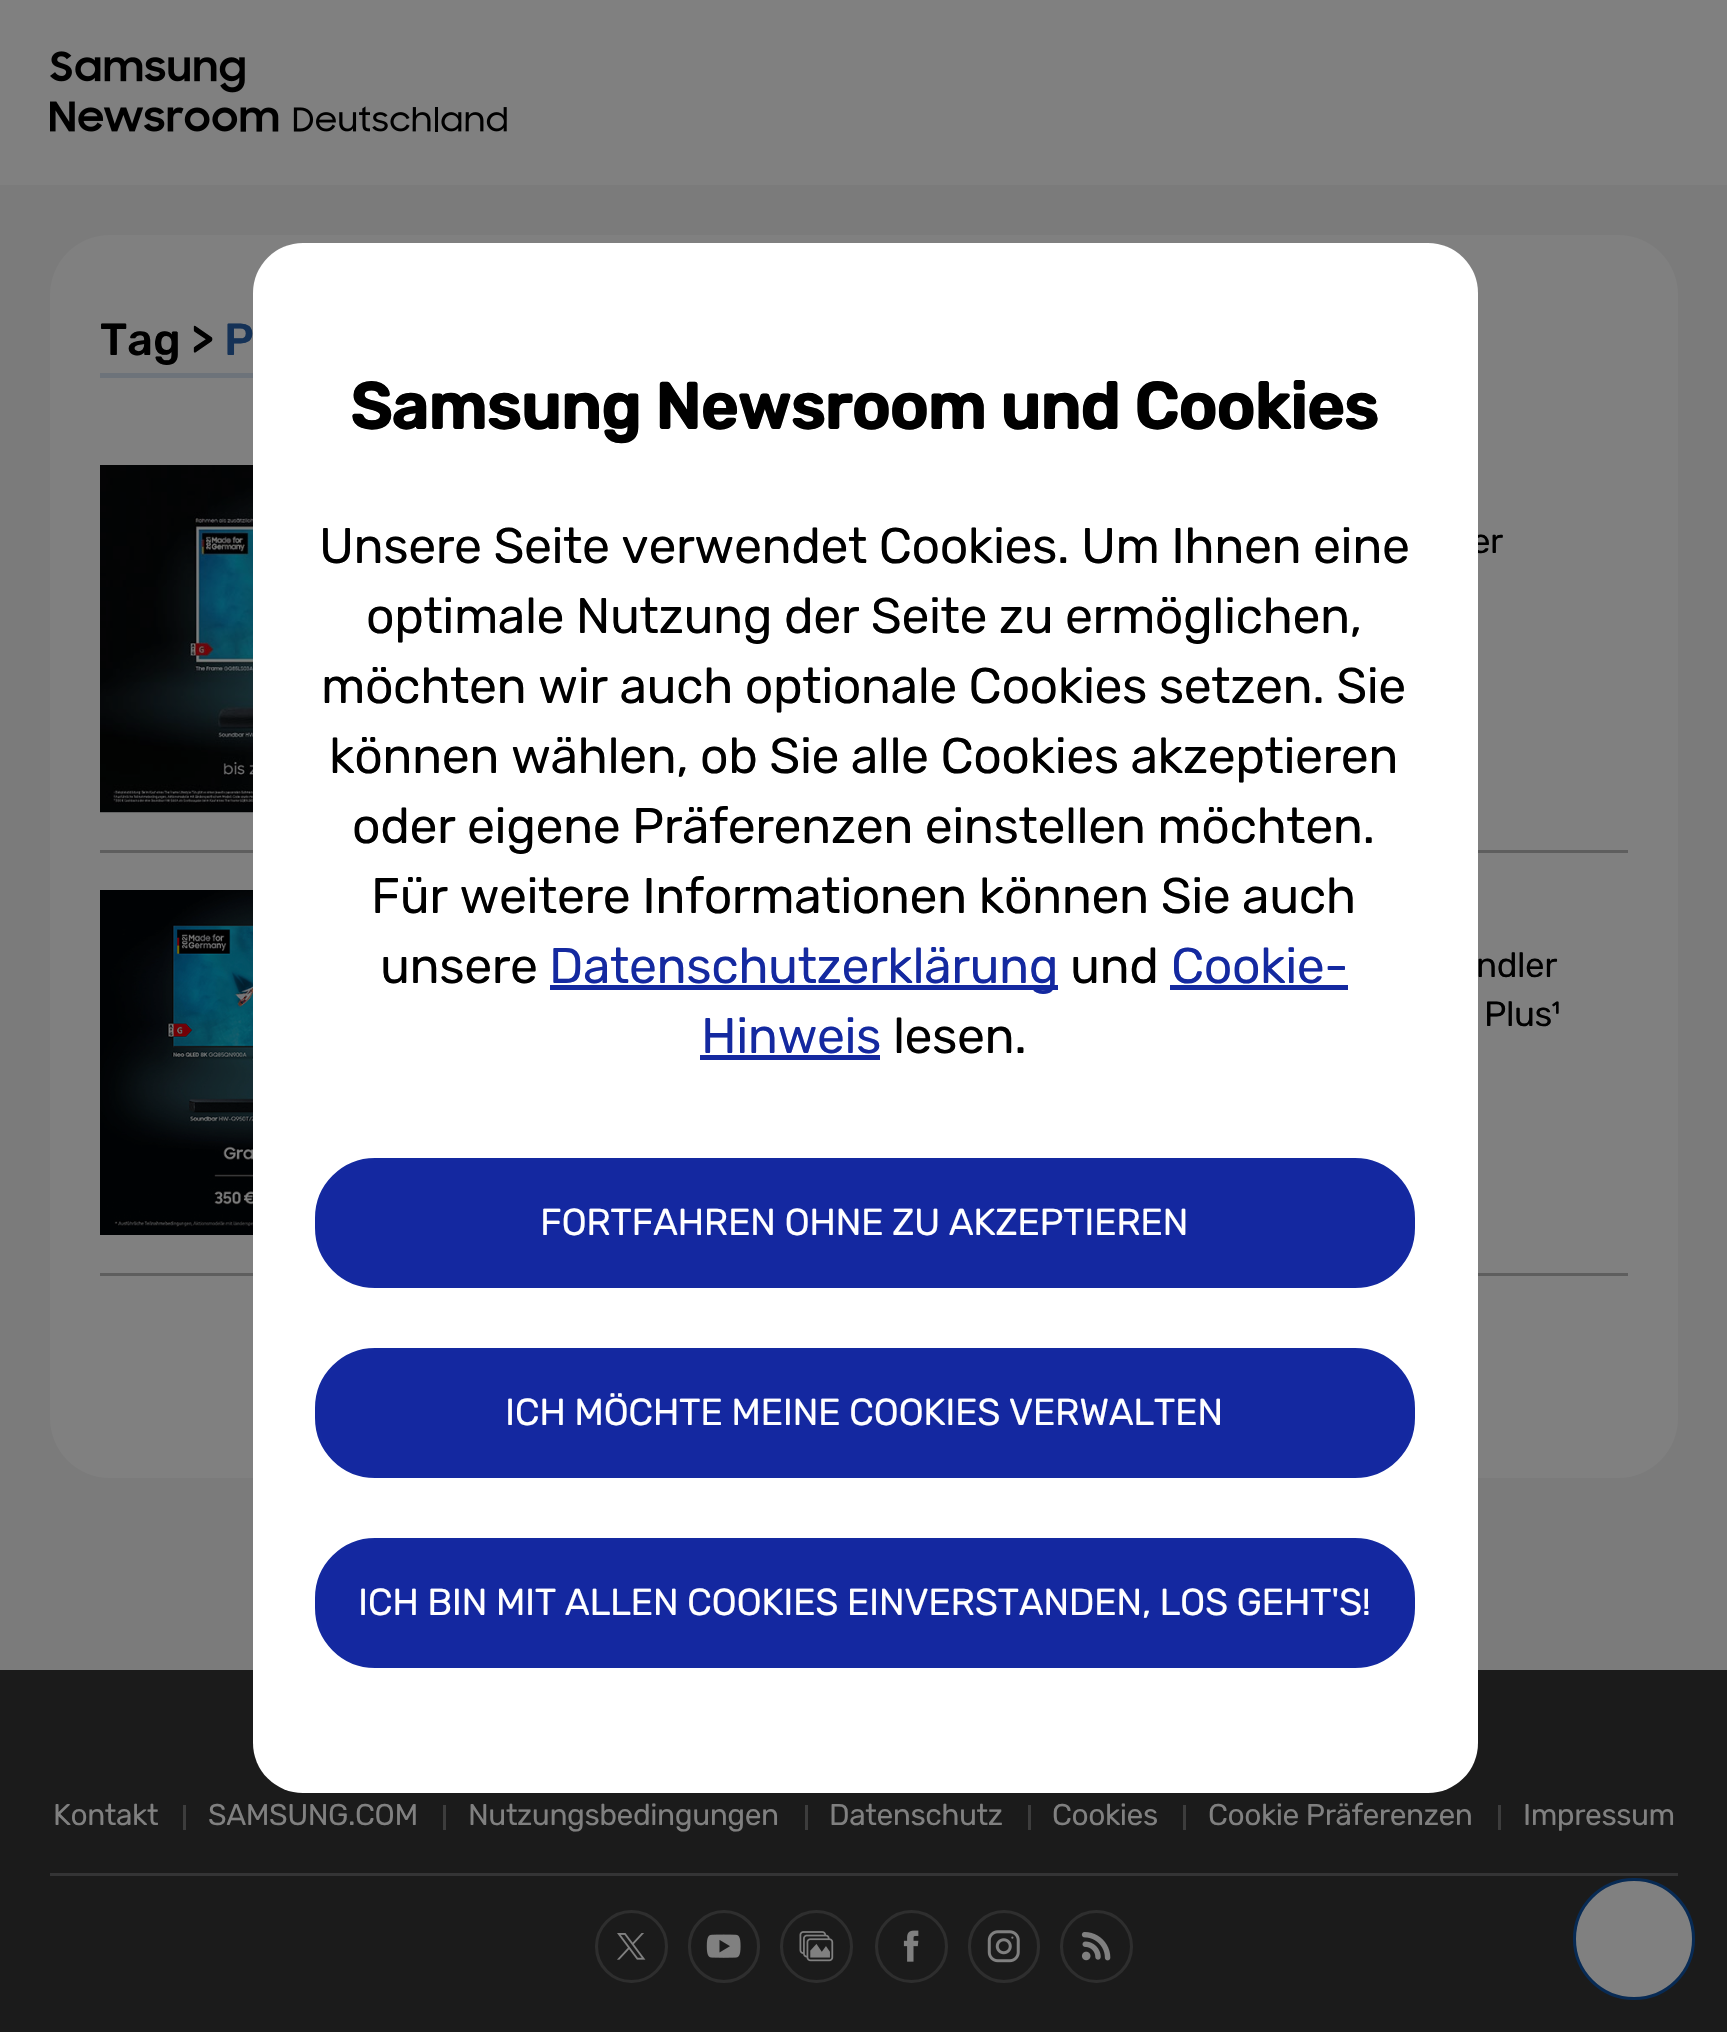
void draw(SkCanvas* c) {
SkPaint p;
p.setAntiAlias(true);
auto F=[&](const char* family, int weight, float size, bool italic = false){SkFontStyle style(weight, SkFontStyle::kNormal_Width,italic ? SkFontStyle::kItalic_Slant : SkFontStyle::kUpright_Slant);SkFont result(fontMgr->matchFamilyStyle(family, style), size);result.setSubpixel(true);return result;};
auto T=[&](const char* s, float x, float y, const SkFont& font){c->drawString(s, x, y, font, p);};
auto L=[&](const char* s, float x, float y, const SkFont& font, const SkPaint& ink, float letter, float word){std::vector<SkGlyphID> glyphs(font.countText(s, strlen(s), SkTextEncoding::kUTF8));std::vector<float> xs(glyphs.size());font.textToGlyphs(s, strlen(s), SkTextEncoding::kUTF8, glyphs);font.getXPos(glyphs, xs, x);float extra = 0;for (size_t i = 0; i < glyphs.size(); i++) {xs[i] += extra;extra += letter + word * (glyphs[i] == font.unicharToGlyph(' '));}c->drawTextBlob(SkTextBlob::MakeFromPosHGlyphs(glyphs, xs, y, font), 0, 0, ink);};
auto R=[&](float x, float y, float w, float h){c->drawRect(SkRect::MakeXYWH(x, y, w, h), p);};
auto Q=[&](float x, float y, float w, float h, float radius){c->drawRoundRect(SkRect::MakeXYWH(x, y, w, h), radius, radius, p);};
auto I=[&](const char* path, float x, float y, float w, float h){auto image = SkImages::DeferredFromEncodedData(SkData::MakeFromFileName(path));c->drawImageRect(image, SkRect::MakeXYWH(x, y, w, h), SkSamplingOptions());};
c->clear(0xff808080);
I("1.png",50,51,457,81);
p.setColor(0xff7b7b7b);
R(0,185,1727,1485);
p.setColor(0xff808080);
Q(50,235,1628,1243,60);
p.setColor(0xff6d737a);
R(100,373,153,5);
auto f1 = F("Rubik",500,45);
p.setColor(0xff000000);
T("Tag >",100,355,f1);
p.setColor(0xff153257);
T("P",224,355,f1);
p.setColor(0xff5e5e5e);
R(100,850,1528,3);
I("2.png",100,465,153,348);
auto f2 = F("Rubik",400,35);
p.setColor(0xff000000);
L("er",1471,553,f2,p,-.45,0);
p.setColor(0xff5e5e5e);
R(100,1273,1528,3);
I("3.png",100,890,153,345);
p.setColor(0xff000000);
L("ndler",1476,977,f2,p,-.45,0);
L("Plus¹",1484,1026,f2,p,-.45,0);
p.setColor(0xff1b1b1b);
R(0,1670,1727,362);
p.setColor(0xff343435);
R(50,1873,1628,3);
auto f3 = F("Rubik",400,30);
p.setColor(0xff808080);
L("Kontakt",53,1825,f3,p,-.45,0);
p.setColor(0xff3d3d3d);
R(183,1805,3,25);
p.setColor(0xff808080);
L("SAMSUNG.COM",208,1825,f3,p,-.45,0);
p.setColor(0xff3d3d3d);
R(443,1805,3,25);
p.setColor(0xff808080);
L("Nutzungsbedingungen",468,1825,f3,p,-.45,0);
p.setColor(0xff3d3d3d);
R(805,1805,3,25);
p.setColor(0xff808080);
L("Datenschutz",829,1825,f3,p,-.45,0);
p.setColor(0xff3d3d3d);
R(1028,1805,3,25);
p.setColor(0xff808080);
L("Cookies",1052,1825,f3,p,-.45,0);
p.setColor(0xff3d3d3d);
R(1183,1805,3,25);
p.setColor(0xff808080);
L("Cookie Präferenzen",1208,1825,f3,p,-.45,0);
p.setColor(0xff3d3d3d);
R(1498,1805,3,25);
p.setColor(0xff808080);
L("Impressum",1523,1825,f3,p,-.45,0);
p.setStroke(true);
p.setStrokeWidth(3);
p.setColor(0xff2e2e2e);
c->drawCircle(631.5,1946.5,35,p);
I("4.png",617,1933,29,27);
c->drawRoundRect(SkRect::MakeXYWH(689.5,1911.5,69,70),34.5,34.5,p);
I("5.png",706,1934,35,24);
c->drawCircle(816.5,1946.5,35,p);
I("6.png",799,1931,35,31);
c->drawCircle(911.5,1946.5,35,p);
I("7.png",903,1930,16,32);
c->drawRoundRect(SkRect::MakeXYWH(969.5,1911.5,69,70),34.5,34.5,p);
I("8.png",987,1930,33,33);
c->drawCircle(1096.5,1946.5,35,p);
I("9.png",1081,1932,30,29);
p.setStroke(false);
p.setColor(0xff808080);
c->drawCircle(1634,1939,59.5,p);
p.setStroke(true);
p.setColor(0xff072a54);
c->drawCircle(1634,1939,59.5,p);
p.setStroke(false);
p.setColor(0xffffffff);
Q(253,243,1225,1550,50);
auto f4 = F("Rubik",700,65);
p.setColor(0xff000000);
L("Samsung Newsroom und Cookies",350,429,f4,p,-.45,0);
auto f5 = F("Rubik",400,50);
L("Unsere Seite verwendet Cookies. Um Ihnen eine",319,563,f5,p,-.45,0);
L("optimale Nutzung der Seite zu ermöglichen,",366,633,f5,p,-.45,0);
L("möchten wir auch optionale Cookies setzen. Sie",321,703,f5,p,-.45,0);
L("können wählen, ob Sie alle Cookies akzeptieren",329,773,f5,p,-.45,0);
L("oder eigene Präferenzen einstellen möchten.",352,843,f5,p,-.45,0);
L("Für weitere Informationen können Sie auch",371,913,f5,p,-.45,0);
L("unsere",380,983,f5,p,-.45,0);
p.setColor(0xff1429a0);
R(550,985,508,5);
L("Datenschutzerklärung",549,983,f5,p,-.45,0);
p.setColor(0xff000000);
L("und",1070,983,f5,p,-.45,0);
p.setColor(0xff1429a0);
L("Cookie-",1171,983,f5,p,-.45,0);
R(1170,985,178,5);
L("Hinweis",701,1053,f5,p,-.45,0);
R(700,1055,180,5);
p.setColor(0xff000000);
L("lesen.",893,1053,f5,p,-.45,0);
p.setColor(0xff1428a0);
c->drawRoundRect(SkRect::MakeXYWH(316.5,1159.5,1097,127),58.5,58.5,p);
p.setStroke(true);
p.setColor(0xff1429a0);
c->drawRoundRect(SkRect::MakeXYWH(316.5,1159.5,1097,127),58.5,58.5,p);
auto f6 = F("Rubik",400,37.5);
p.setStroke(false);
p.setColor(0xffffffff);
L("FORTFAHREN OHNE ZU AKZEPTIEREN",540,1235,f6,p,-.45,0);
p.setColor(0xff1428a0);
c->drawRoundRect(SkRect::MakeXYWH(316.5,1349.5,1097,127),58.5,58.5,p);
p.setStroke(true);
p.setColor(0xff1429a0);
c->drawRoundRect(SkRect::MakeXYWH(316.5,1349.5,1097,127),58.5,58.5,p);
p.setStroke(false);
p.setColor(0xffffffff);
L("ICH MÖCHTE MEINE COOKIES VERWALTEN",505,1425,f6,p,-.45,0);
p.setColor(0xff1428a0);
c->drawRoundRect(SkRect::MakeXYWH(316.5,1539.5,1097,127),58.5,58.5,p);
p.setStroke(true);
p.setColor(0xff1429a0);
c->drawRoundRect(SkRect::MakeXYWH(316.5,1539.5,1097,127),58.5,58.5,p);
p.setStroke(false);
p.setColor(0xffffffff);
L("ICH BIN MIT ALLEN COOKIES EINVERSTANDEN, LOS GEHT'S!",358,1615,f6,p,-.45,0);
}
